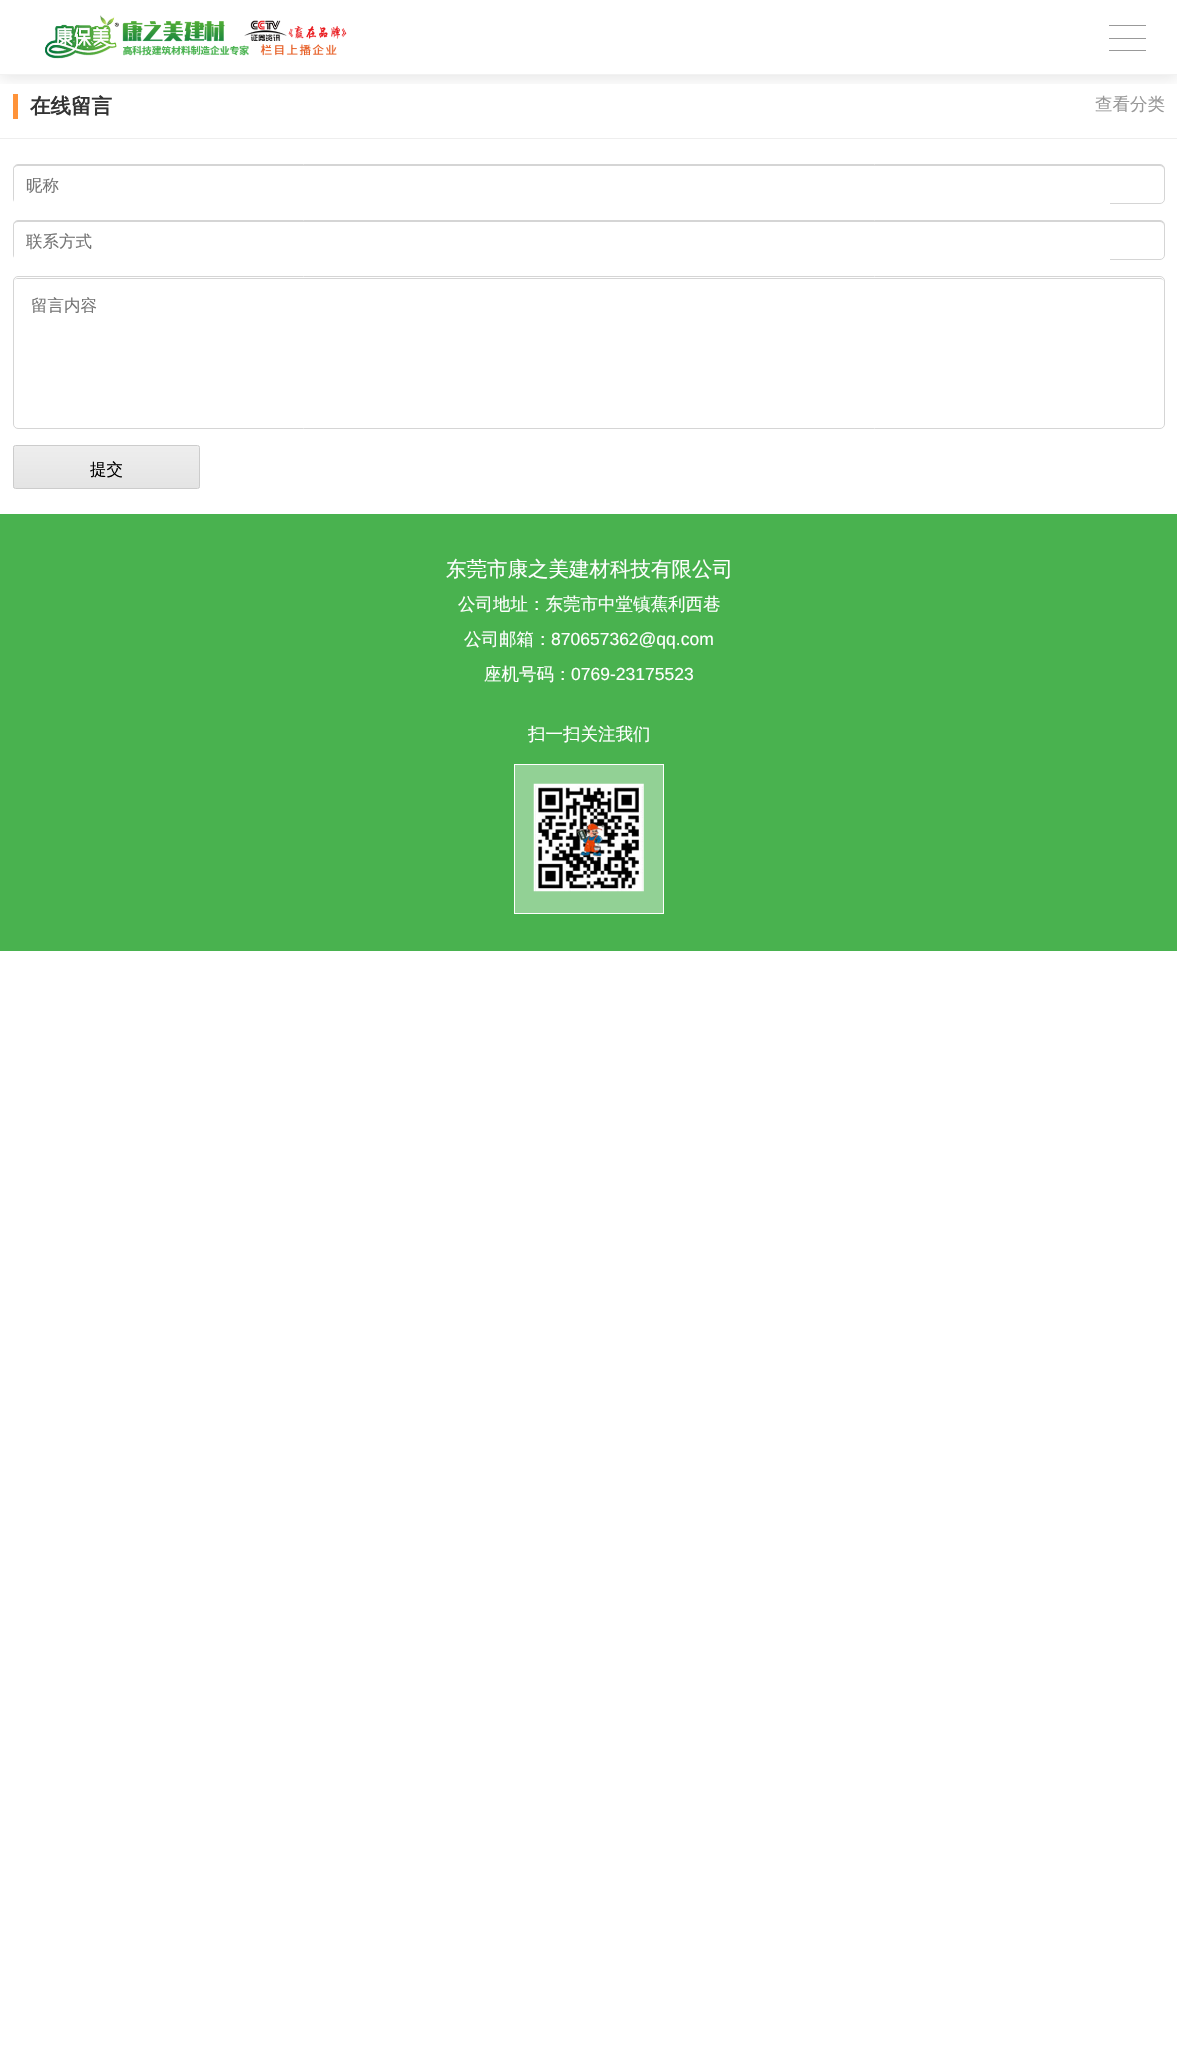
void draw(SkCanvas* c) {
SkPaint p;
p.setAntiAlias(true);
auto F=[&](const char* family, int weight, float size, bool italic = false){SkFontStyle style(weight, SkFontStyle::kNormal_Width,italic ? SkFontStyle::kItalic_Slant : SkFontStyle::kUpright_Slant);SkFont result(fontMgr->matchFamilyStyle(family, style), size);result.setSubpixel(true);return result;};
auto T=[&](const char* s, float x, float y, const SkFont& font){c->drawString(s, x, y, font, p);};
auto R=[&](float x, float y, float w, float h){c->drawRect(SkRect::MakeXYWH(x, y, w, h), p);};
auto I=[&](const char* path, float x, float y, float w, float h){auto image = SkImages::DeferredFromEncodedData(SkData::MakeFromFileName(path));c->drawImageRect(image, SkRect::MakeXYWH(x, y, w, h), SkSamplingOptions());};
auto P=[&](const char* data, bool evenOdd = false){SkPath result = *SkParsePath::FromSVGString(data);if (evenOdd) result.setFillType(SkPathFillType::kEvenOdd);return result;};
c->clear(0xffffffff);
p.setColor(0xffff9339);
R(13,94,5,25);
c->save();
c->clipRect(SkRect::MakeXYWH(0,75,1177,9));
p.setColor(0x1a000000);
p.setMaskFilter(SkMaskFilter::MakeBlur(kNormal_SkBlurStyle, 7.5));
c->drawRect(SkRect::MakeXYWH(0,3,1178,75),p);
p.setMaskFilter(nullptr);
c->restore();
I("1.png",45,15,302,44);
p.setColor(0xfff2f2f2);
R(0,74,1177,1);
p.setColor(0xff999999);
R(1109,25,37,1);
R(1109,38,37,1);
R(1109,50,37,1);
p.setColor(0xffeeeeee);
R(0,138,1177,1);
auto f1 = F("WenQuanYi Zen Hei",700,20.5);
p.setColor(0xff333333);
T("在线留言",30,113,f1);
auto f2 = F("WenQuanYi Zen Hei",500,17.5);
p.setColor(0xff999999);
T("查看分类",1095,110,f2);
p.setColor(0xffd5d5d5);
c->drawPath(P("M18 166h1142c2 0 4 2 4 4c0-3-1-5-4-5h-1142c-3 0-4 2-4 5c0-2 1-4 4-4z"),p);
p.setStroke(true);
p.setStrokeWidth(1);
c->drawRoundRect(SkRect::MakeXYWH(13.5,164.5,1151,39),4.5,4.5,p);
p.setStroke(false);
p.setColor(0xffffffff);
R(14,168,1096,36);
auto f3 = F("WenQuanYi Zen Hei",500,16.5);
p.setColor(0xff757575);
T("昵称",26,191,f3);
p.setColor(0xffd5d5d5);
c->drawPath(P("M18 222h1142c2 0 4 2 4 4c0-3-1-5-4-5h-1142c-3 0-4 2-4 5c0-2 1-4 4-4z"),p);
p.setStroke(true);
c->drawRoundRect(SkRect::MakeXYWH(13.5,220.5,1151,39),4.5,4.5,p);
p.setStroke(false);
p.setColor(0xffffffff);
R(14,224,1096,36);
p.setColor(0xff757575);
T("联系方式",26,247,f3);
p.setColor(0xffd5d5d5);
c->drawPath(P("M18 279h1142c2 0 4 1 4 3c0-2-2-4-4-4h-1142c-2 0-3 1-4 2c1-1 2-1 4-1z"),p);
p.setStroke(true);
c->drawRoundRect(SkRect::MakeXYWH(13.5,276.5,1151,152),4.5,4.5,p);
p.setStroke(false);
p.setColor(0xff757575);
T("留言内容",31,311,f3);
c->save();
c->clipPath(P("M15.5 445h182c1.5 0 2.5 1 2.5 2.5v39c0 1.5-1 2.5-2.5 2.5h-182c-1.5 0-2.5-1-2.5-2.5v-39c0-1.5 1-2.5 2.5-2.5z"),true);
{
const SkColor colors[] = {0xffeeeeee,0xffe4e4e4};
const float stops[] = {0,1};
const SkPoint ends[] = {{14,446}, {14,488}};
p.setShader(SkGradientShader::MakeLinear(ends, colors, stops, 2, SkTileMode::kClamp));
p.setAlpha(255);
}
R(13,446,187,42);
c->restore();
p.setStroke(true);
p.setShader(nullptr);
p.setColor(0xffcccccc);
c->drawRoundRect(SkRect::MakeXYWH(13.5,445.5,186,43),2,2,p);
p.setStroke(false);
p.setColor(0xff000000);
T("提交",90,475,f3);
p.setColor(0xff49b24f);
R(0,514,1177,437);
auto f4 = F("WenQuanYi Zen Hei",500,20.5);
p.setColor(0xffffffff);
T("东莞市康之美建材科技有限公司",446,576,f4);
T("公司地址：东莞市中堂镇蕉利西巷",458,610,f2);
T("公司邮箱：",464,645,f2);
auto f5 = F("Liberation Sans",400,17.5);
T("870657362@qq.com",551,645,f5);
T("座机号码：",484,680,f2);
T("0769-23175523",571,680,f5);
T("扫一扫关注我们",528,740,f2);
p.setColor(0xff92d195);
c->drawRect(SkRect::MakeXYWH(514.5,764.5,149,149),p);
p.setStroke(true);
p.setColor(0xffffffff);
c->drawRect(SkRect::MakeXYWH(514.5,764.5,149,149),p);
I("2.png",533,783,111,109);
}
